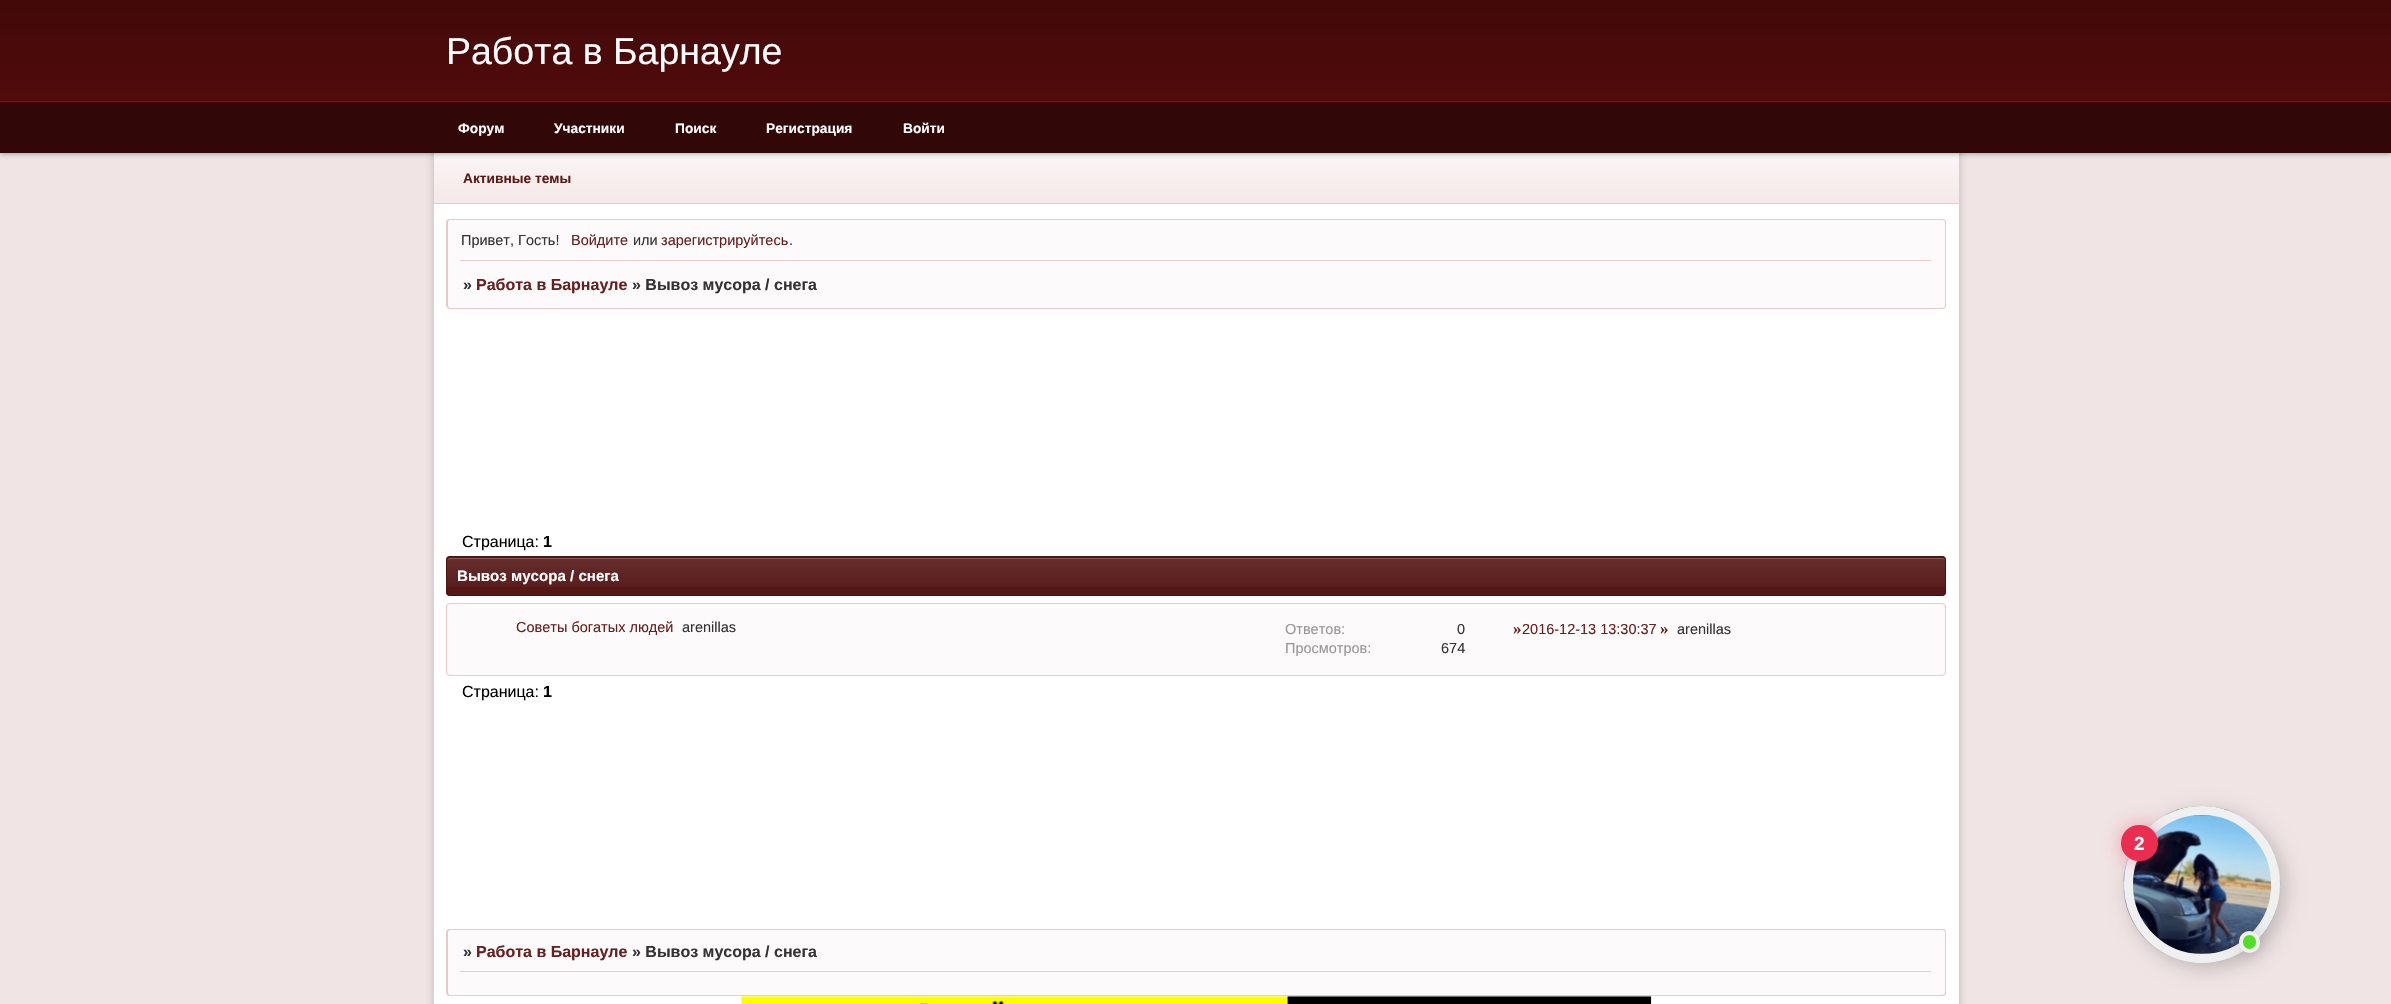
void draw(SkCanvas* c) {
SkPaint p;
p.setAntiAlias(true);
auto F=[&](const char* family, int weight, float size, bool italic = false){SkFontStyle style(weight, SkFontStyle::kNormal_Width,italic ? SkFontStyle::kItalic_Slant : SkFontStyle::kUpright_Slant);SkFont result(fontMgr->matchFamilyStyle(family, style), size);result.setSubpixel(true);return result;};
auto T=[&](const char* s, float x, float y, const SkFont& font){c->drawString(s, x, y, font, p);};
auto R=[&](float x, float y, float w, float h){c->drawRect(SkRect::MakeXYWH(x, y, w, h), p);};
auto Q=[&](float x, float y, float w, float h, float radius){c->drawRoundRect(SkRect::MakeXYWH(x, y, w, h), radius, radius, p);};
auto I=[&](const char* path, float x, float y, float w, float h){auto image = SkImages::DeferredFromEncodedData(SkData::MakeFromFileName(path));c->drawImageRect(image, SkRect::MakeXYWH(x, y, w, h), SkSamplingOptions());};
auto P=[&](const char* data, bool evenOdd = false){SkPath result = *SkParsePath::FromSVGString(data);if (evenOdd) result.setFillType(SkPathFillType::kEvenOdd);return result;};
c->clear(0xfff0e4e4);
p.setColor(0x33000000);
p.setMaskFilter(SkMaskFilter::MakeBlur(kNormal_SkBlurStyle, 4));
c->drawRoundRect(SkRect::MakeXYWH(434,0,1525,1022),6,6,p);
p.setMaskFilter(nullptr);
p.setColor(0xffffffff);
R(434,204,1525,800);
{
const SkColor colors[] = {0xff420909,0xff520b0b};
const float stops[] = {0,.7};
const SkPoint ends[] = {{1196,0}, {1196,153}};
p.setShader(SkGradientShader::MakeLinear(ends, colors, stops, 2, SkTileMode::kClamp));
p.setAlpha(255);
}
R(0,0,2391,153);
auto f1 = F("Liberation Sans",400,37.5);
p.setShader(nullptr);
p.setColor(0xffffffff);
T("Работа в Барнауле",446,64,f1);
{
const SkColor colors[] = {0xfffbf6f6,0xfff5e8e8};
const float stops[] = {0,1};
const SkPoint ends[] = {{1196,152}, {1196,203}};
p.setShader(SkGradientShader::MakeLinear(ends, colors, stops, 2, SkTileMode::kClamp));
p.setAlpha(255);
}
R(434,153,1525,50);
c->save();
c->clipPath(P("M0 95h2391v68h-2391zm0 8h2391v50h-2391z",true),true);
p.setShader(nullptr);
p.setColor(0x4d000000);
p.setMaskFilter(SkMaskFilter::MakeBlur(kNormal_SkBlurStyle, 2.5));
c->drawRect(SkRect::MakeXYWH(0,104,2391,50),p);
p.setMaskFilter(nullptr);
c->restore();
p.setColor(0xff5b1e1e);
R(0,101,2391,1);
p.setColor(0x66000000);
R(0,103,2391,50);
auto f2 = F("Liberation Sans",700,13.75);
p.setColor(0xffffffff);
T("Форум",458,133,f2);
T("Участники",554,133,f2);
T("Поиск",675,133,f2);
T("Регистрация",766,133,f2);
T("Войти",903,133,f2);
p.setColor(0xffebc9c9);
R(434,203,1525,1);
p.setColor(0xff5c1919);
T("Активные темы",463,183,f2);
p.setColor(0xfffcfafa);
c->drawPath(P("M450 219h1492c2 0 4 2 4 4v40h-1500v-40c0-2 2-4 4-4z"),p);
p.setColor(0xffebc9c9);
c->drawPath(P("M450 219h1492c3 0 4 1 4 3v40h-1500v-40c0-2 2-3 4-3zm0 1h1492c2 0 3 1 3 2v40h-1497v-40c0-1 1-2 2-2z",true),p);
auto f3 = F("Liberation Sans",400,14.5);
p.setColor(0xff333333);
T("Привет, Гость!",461,245,f3);
p.setColor(0xff672020);
T("Войдите",571,245,f3);
p.setColor(0xff333333);
T("или",633,245,f3);
p.setColor(0xff672020);
T("зарегистрируйтесь",661,245,f3);
p.setColor(0xff333333);
T(".",789,245,f3);
p.setColor(0xfffcfafa);
c->drawPath(P("M446 260h1500v45c0 2-2 4-4 4h-1492c-2 0-4-2-4-4z"),p);
p.setColor(0xffebc9c9);
c->drawPath(P("M446 260h1500v45c0 2-1 4-4 4h-1492c-2 0-4-2-4-4zm2 0h1497v45c0 1-1 3-3 3h-1492c-1 0-2-2-2-3z",true),p);
R(460,260,1471,1);
auto f4 = F("Liberation Sans",700,16);
p.setColor(0xff333333);
T("»",463,290,f4);
p.setColor(0xff672020);
T("Работа в Барнауле",476,290,f4);
p.setColor(0xff333333);
T("» Вывоз мусора / снега",632,290,f4);
auto f5 = F("Liberation Sans",400,16);
p.setColor(0xff000000);
T("Страница:",462,547,f5);
T("1",543,547,f4);
p.setColor(0xff561717);
Q(446,556,1500,40,4);
{
const SkColor colors[] = {0x1affffff,0x00ffffff};
const float stops[] = {0,1};
const SkPoint ends[] = {{1196,557}, {1196,595}};
p.setShader(SkGradientShader::MakeLinear(ends, colors, stops, 2, SkTileMode::kClamp));
p.setAlpha(255);
}
R(446,558,1500,29);
p.setShader(nullptr);
p.setColor(0xff855757);
c->drawPath(P("M450 559h1492c2 0 3 1 3 2c0-2-1-3-3-3h-1492c-1 0-2 1-2 3c0-1 1-2 2-2z"),p);
p.setStroke(true);
p.setStrokeWidth(1);
p.setColor(0xff4a1313);
c->drawRoundRect(SkRect::MakeXYWH(446.5,556.5,1499,39),3.5,3.5,p);
auto f6 = F("Liberation Sans",700,15.1);
p.setStroke(false);
p.setColor(0xffffffff);
T("Вывоз мусора / снега",457,581,f6);
p.setColor(0xfffcfafa);
c->drawRoundRect(SkRect::MakeXYWH(446.5,603.5,1499,72),3.5,3.5,p);
p.setStroke(true);
p.setColor(0xffebc9c9);
c->drawRoundRect(SkRect::MakeXYWH(446.5,603.5,1499,72),3.5,3.5,p);
p.setStroke(false);
p.setColor(0xff672020);
T("Советы богатых людей",516,632,f3);
p.setColor(0xff333333);
T("arenillas",682,632,f3);
p.setColor(0xff969696);
T("Ответов:",1285,634,f3);
p.setColor(0xff333333);
T("0",1457,634,f3);
auto f7 = F("Liberation Serif",700,17);
p.setColor(0xff672020);
T("»",1513,634,f7);
T("2016-12-13 13:30:37",1522,634,f3);
T("»",1660,634,f7);
p.setColor(0xff333333);
T("arenillas",1677,634,f3);
p.setColor(0xff969696);
T("Просмотров:",1285,653,f3);
p.setColor(0xff333333);
T("674",1441,653,f3);
p.setColor(0xff000000);
T("Страница:",462,697,f5);
T("1",543,697,f4);
p.setColor(0xfffcfafa);
c->drawPath(P("M446 971h1500v21c0 2-2 4-4 4h-1492c-2 0-4-2-4-4z"),p);
p.setColor(0xffebc9c9);
c->drawPath(P("M446 971h1500v21c0 3-1 4-4 4h-1492c-2 0-4-1-4-4zm2 0h1497v21c0 2-1 3-3 3h-1492c-1 0-2-1-2-3z",true),p);
p.setColor(0xfffcfafa);
c->drawPath(P("M450 929h1492c2 0 4 2 4 4v41h-1500v-41c0-2 2-4 4-4z"),p);
p.setColor(0xffebc9c9);
c->drawPath(P("M450 929h1492c3 0 4 1 4 3v42h-1500v-42c0-2 2-3 4-3zm0 1h1492c2 0 3 1 3 2v42h-1497v-42c0-1 1-2 2-2z",true),p);
p.setColor(0xff333333);
T("»",463,957,f4);
p.setColor(0xff672020);
T("Работа в Барнауле",476,957,f4);
p.setColor(0xff333333);
T("» Вывоз мусора / снега",632,957,f4);
I("1.png",741,996,911,8);
p.setColor(0xffebc9c9);
R(460,971,1471,1);
p.setColor(0x33000000);
p.setMaskFilter(SkMaskFilter::MakeBlur(kNormal_SkBlurStyle, 10));
c->drawRoundRect(SkRect::MakeXYWH(2129,811,156,157),78,78,p);
p.setMaskFilter(nullptr);
I("2.png",2123,806,158,157);
p.setStroke(true);
p.setStrokeWidth(9);
p.setColor(0xfff0f0f0);
c->drawRoundRect(SkRect::MakeXYWH(2128.5,810.5,147,148),73.5,73.5,p);
p.setStroke(false);
p.setColor(0x66eb2d51);
p.setMaskFilter(SkMaskFilter::MakeBlur(kNormal_SkBlurStyle, 10));
c->drawRoundRect(SkRect::MakeXYWH(2121,825,37,36),18,18,p);
p.setMaskFilter(nullptr);
p.setColor(0xffeb2d51);
Q(2121,825,37,36,18);
auto f8 = F("Liberation Sans",700,19);
p.setColor(0xffffffff);
T("2",2134,850,f8);
p.setColor(0x33000000);
p.setMaskFilter(SkMaskFilter::MakeBlur(kNormal_SkBlurStyle, 10));
c->drawRoundRect(SkRect::MakeXYWH(2239,931,21,22),10.5,10.5,p);
p.setMaskFilter(nullptr);
p.setColor(0xff52dd26);
c->drawRoundRect(SkRect::MakeXYWH(2241,933,17,18),8.5,8.5,p);
p.setStroke(true);
p.setStrokeWidth(4);
p.setColor(0xfff0f0f0);
c->drawRoundRect(SkRect::MakeXYWH(2241,933,17,18),8.5,8.5,p);
}
